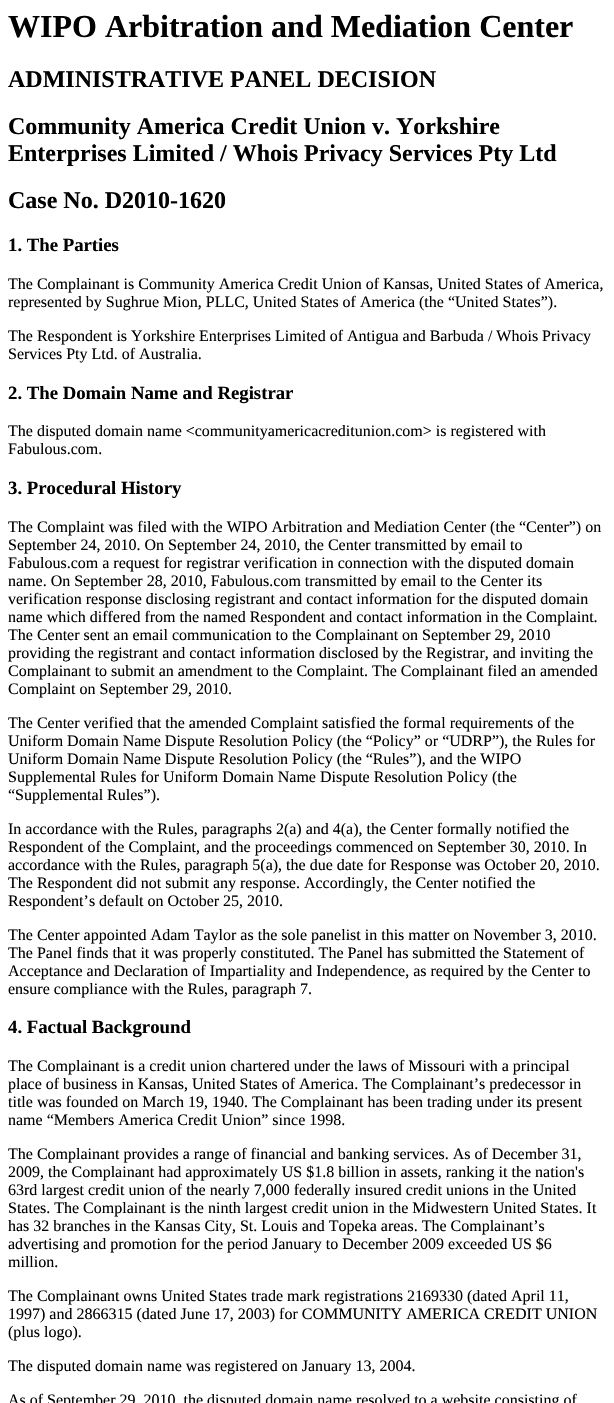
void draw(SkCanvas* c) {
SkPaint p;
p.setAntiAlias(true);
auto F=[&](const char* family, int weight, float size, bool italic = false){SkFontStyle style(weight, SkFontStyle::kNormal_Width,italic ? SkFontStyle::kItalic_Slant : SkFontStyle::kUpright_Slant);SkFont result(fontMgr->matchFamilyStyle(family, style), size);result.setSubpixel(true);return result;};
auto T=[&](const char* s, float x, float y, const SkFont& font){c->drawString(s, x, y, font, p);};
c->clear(0xffffffff);
auto f1 = F("Liberation Serif",700,32);
p.setColor(0xff000000);
T("WIPO Arbitration and Mediation Center",8,37,f1);
auto f2 = F("Liberation Serif",700,24);
T("ADMINISTRATIVE PANEL DECISION",8,87,f2);
T("Community America Credit Union v. Yorkshire",8,134,f2);
T("Enterprises Limited / Whois Privacy Services Pty Ltd",8,161,f2);
T("Case No. D2010-1620",8,208,f2);
auto f3 = F("Liberation Serif",700,18.75);
T("1. The Parties",8,251,f3);
auto f4 = F("Liberation Serif",400,16);
T("The Complainant is Community America Credit Union of Kansas, United States of America,",8,289,f4);
T("represented by Sughrue Mion, PLLC, United States of America (the “United States”).",8,307,f4);
T("The Respondent is Yorkshire Enterprises Limited of Antigua and Barbuda / Whois Privacy",8,341,f4);
T("Services Pty Ltd. of Australia.",8,359,f4);
T("2. The Domain Name and Registrar",8,399,f3);
T("The disputed domain name <communityamericacreditunion.com> is registered with",8,436,f4);
T("Fabulous.com.",8,454,f4);
T("3. Procedural History",8,494,f3);
T("The Complaint was filed with the WIPO Arbitration and Mediation Center (the “Center”) on",8,532,f4);
T("September 24, 2010. On September 24, 2010, the Center transmitted by email to",8,550,f4);
T("Fabulous.com a request for registrar verification in connection with the disputed domain",8,568,f4);
T("name. On September 28, 2010, Fabulous.com transmitted by email to the Center its",8,586,f4);
T("verification response disclosing registrant and contact information for the disputed domain",8,604,f4);
T("name which differed from the named Respondent and contact information in the Complaint.",8,622,f4);
T("The Center sent an email communication to the Complainant on September 29, 2010",8,640,f4);
T("providing the registrant and contact information disclosed by the Registrar, and inviting the",8,658,f4);
T("Complainant to submit an amendment to the Complaint. The Complainant filed an amended",8,676,f4);
T("Complaint on September 29, 2010.",8,694,f4);
T("The Center verified that the amended Complaint satisfied the formal requirements of the",8,728,f4);
T("Uniform Domain Name Dispute Resolution Policy (the “Policy” or “UDRP”), the Rules for",8,746,f4);
T("Uniform Domain Name Dispute Resolution Policy (the “Rules”), and the WIPO",8,764,f4);
T("Supplemental Rules for Uniform Domain Name Dispute Resolution Policy (the",8,782,f4);
T("“Supplemental Rules”).",8,800,f4);
T("In accordance with the Rules, paragraphs 2(a) and 4(a), the Center formally notified the",8,834,f4);
T("Respondent of the Complaint, and the proceedings commenced on September 30, 2010. In",8,852,f4);
T("accordance with the Rules, paragraph 5(a), the due date for Response was October 20, 2010.",8,870,f4);
T("The Respondent did not submit any response. Accordingly, the Center notified the",8,888,f4);
T("Respondent’s default on October 25, 2010.",8,906,f4);
T("The Center appointed Adam Taylor as the sole panelist in this matter on November 3, 2010.",8,940,f4);
T("The Panel finds that it was properly constituted. The Panel has submitted the Statement of",8,958,f4);
T("Acceptance and Declaration of Impartiality and Independence, as required by the Center to",8,976,f4);
T("ensure compliance with the Rules, paragraph 7.",8,994,f4);
T("4. Factual Background",8,1033,f3);
T("The Complainant is a credit union chartered under the laws of Missouri with a principal",8,1071,f4);
T("place of business in Kansas, United States of America. The Complainant’s predecessor in",8,1089,f4);
T("title was founded on March 19, 1940. The Complainant has been trading under its present",8,1107,f4);
T("name “Members America Credit Union” since 1998.",8,1125,f4);
T("The Complainant provides a range of financial and banking services. As of December 31,",8,1159,f4);
T("2009, the Complainant had approximately US $1.8 billion in assets, ranking it the nation's",8,1177,f4);
T("63rd largest credit union of the nearly 7,000 federally insured credit unions in the United",8,1195,f4);
T("States. The Complainant is the ninth largest credit union in the Midwestern United States. It",8,1213,f4);
T("has 32 branches in the Kansas City, St. Louis and Topeka areas. The Complainant’s",8,1231,f4);
T("advertising and promotion for the period January to December 2009 exceeded US $6",8,1249,f4);
T("million.",8,1267,f4);
T("The Complainant owns United States trade mark registrations 2169330 (dated April 11,",8,1301,f4);
T("1997) and 2866315 (dated June 17, 2003) for COMMUNITY AMERICA CREDIT UNION",8,1319,f4);
T("(plus logo).",8,1337,f4);
T("The disputed domain name was registered on January 13, 2004.",8,1371,f4);
T("As of September 29, 2010, the disputed domain name resolved to a website consisting of",8,1405,f4);
}
